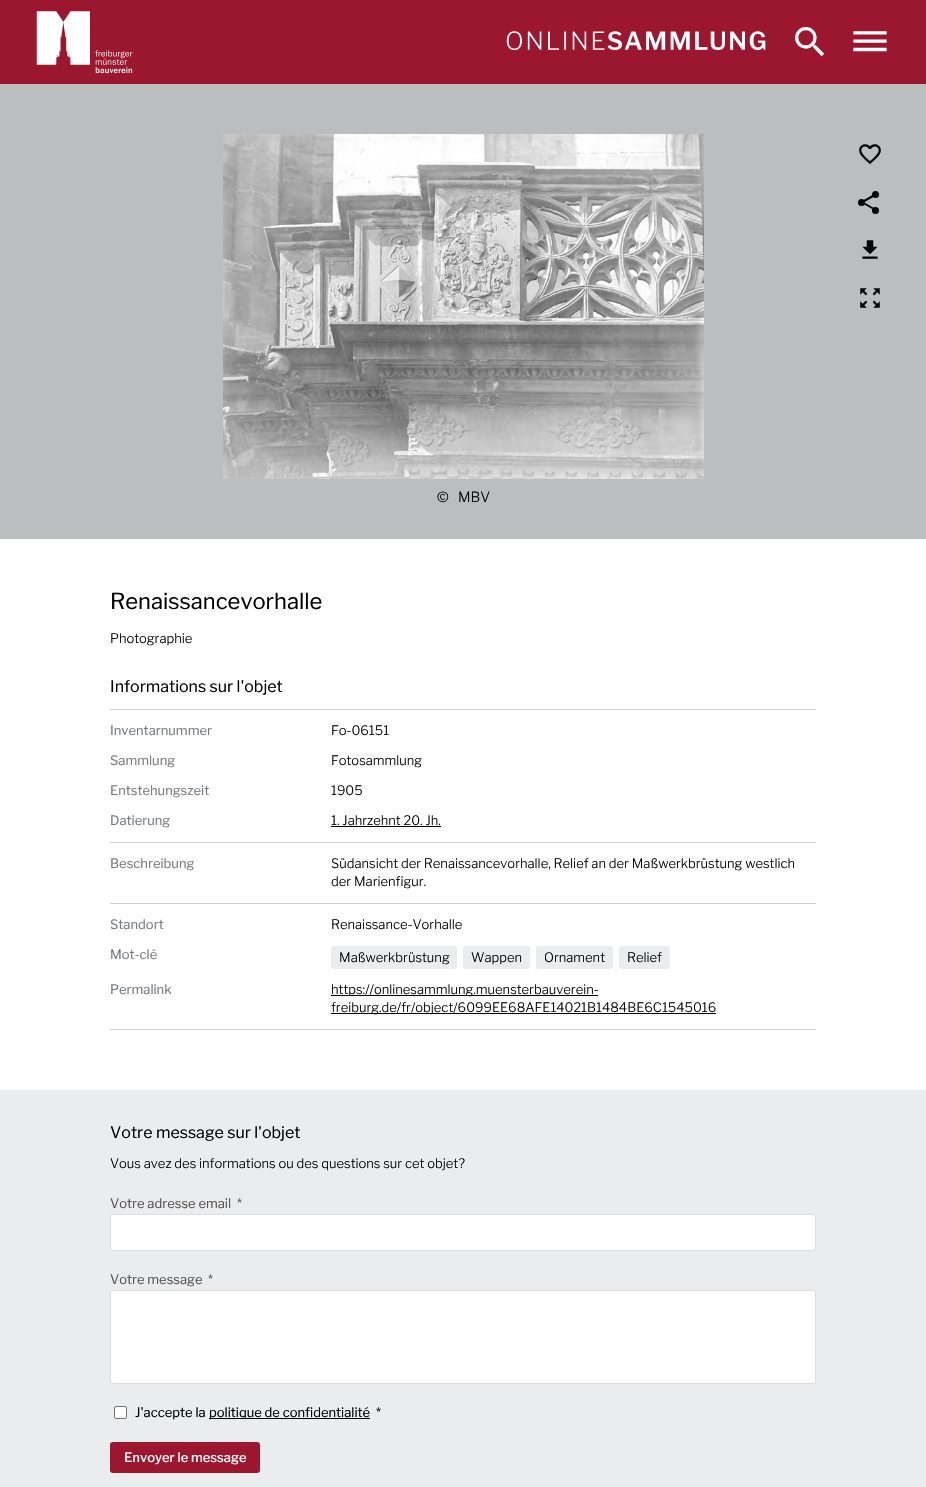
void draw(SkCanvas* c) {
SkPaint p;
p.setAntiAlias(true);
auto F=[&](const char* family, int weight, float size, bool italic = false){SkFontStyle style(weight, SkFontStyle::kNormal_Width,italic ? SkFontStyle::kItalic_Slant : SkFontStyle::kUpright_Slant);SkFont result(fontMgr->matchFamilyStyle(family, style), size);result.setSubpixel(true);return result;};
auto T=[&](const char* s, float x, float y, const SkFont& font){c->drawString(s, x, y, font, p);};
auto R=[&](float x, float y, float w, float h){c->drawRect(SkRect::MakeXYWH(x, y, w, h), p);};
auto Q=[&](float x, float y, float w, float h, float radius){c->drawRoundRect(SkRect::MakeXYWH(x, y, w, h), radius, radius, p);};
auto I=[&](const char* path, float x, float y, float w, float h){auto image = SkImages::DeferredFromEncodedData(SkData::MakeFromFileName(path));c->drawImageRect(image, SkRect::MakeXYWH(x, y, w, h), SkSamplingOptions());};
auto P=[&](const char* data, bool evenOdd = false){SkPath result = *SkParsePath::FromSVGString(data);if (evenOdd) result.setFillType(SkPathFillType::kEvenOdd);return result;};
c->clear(0xffffffff);
p.setColor(0xff9a172f);
R(0,0,926,84);
I("1.png",36,11,97,63);
I("2.png",506,31,260,19);
I("3.png",795,27,29,30);
I("4.png",853,31,34,21);
p.setColor(0xffbcbdbe);
R(0,84,926,455);
I("5.png",859,144,22,21);
p.setColor(0xff000000);
c->drawCircle(875.5,210.5,3.5,p);
c->drawCircle(875.5,194.5,3.5,p);
c->drawCircle(861.5,202.5,3.5,p);
c->drawPath(P("M863.5 202l14 8l-1 1.5l-14-8z"),p);
c->drawPath(P("M861 201.5l14-8l1 2l-14 8z"),p);
I("6.png",862,240,16,19);
I("7.png",860,288,20,20);
I("8.png",223,134,481,345);
auto f1 = F("Libre Franklin",300,14);
T("©",437,502,f1);
T("MBV",458,502,f1);
auto f2 = F("Libre Franklin",400,22);
T("Renaissancevorhalle",110,609,f2);
auto f3 = F("Libre Franklin",300,13);
T("Photographie",110,643,f3);
auto f4 = F("Libre Franklin",400,16);
T("Informations sur l'objet",110,692,f4);
p.setColor(0xffd0d2d3);
R(110,709,706,1);
auto f5 = F("Libre Franklin",400,13);
p.setColor(0xff77797c);
T("Inventarnummer",110,735,f5);
p.setColor(0xff000000);
T("Fo-06151",331,735,f3);
p.setColor(0xff77797c);
T("Sammlung",110,765,f5);
p.setColor(0xff000000);
T("Fotosammlung",331,765,f3);
p.setColor(0xff77797c);
T("Entstehungszeit",110,795,f5);
p.setColor(0xff000000);
T("1905",331,795,f3);
p.setColor(0xff77797c);
T("Datierung",110,825,f5);
p.setColor(0xff000000);
T("1. Jahrzehnt 20. Jh.",331,825,f3);
R(331,826,110,1);
p.setColor(0xffd0d2d3);
R(110,842,706,1);
p.setColor(0xff77797c);
T("Beschreibung",110,868,f5);
p.setColor(0xff000000);
T("Südansicht der Renaissancevorhalle, Relief an der Maßwerkbrüstung westlich",331,868,f3);
T("der Marienfigur.",331,886,f3);
p.setColor(0xffd0d2d3);
R(110,903,706,1);
p.setColor(0xff77797c);
T("Standort",110,929,f5);
p.setColor(0xff000000);
T("Renaissance-Vorhalle",331,929,f3);
p.setColor(0xff77797c);
T("Mot-clé",110,959,f5);
p.setColor(0xffebeced);
Q(331,946,126,23,3);
p.setColor(0xff000000);
T("Maßwerkbrüstung",339,962,f3);
p.setColor(0xffebeced);
Q(463,946,67,23,3);
p.setColor(0xff000000);
T("Wappen",471,962,f3);
p.setColor(0xffebeced);
Q(536,946,77,23,3);
p.setColor(0xff000000);
T("Ornament",544,962,f3);
p.setColor(0xffebeced);
Q(619,946,51,23,3);
p.setColor(0xff000000);
T("Relief",627,962,f3);
p.setColor(0xff77797c);
T("Permalink",110,994,f5);
p.setColor(0xff000000);
R(331,995,267,1);
T("https://onlinesammlung.muensterbauverein-",331,994,f3);
R(331,1013,385,1);
T("freiburg.de/fr/object/6099EE68AFE14021B1484BE6C1545016",331,1012,f3);
p.setColor(0xffd0d2d3);
R(110,1029,706,1);
p.setColor(0xffebeced);
R(0,1090,926,397);
p.setColor(0xff000000);
T("Votre message sur l'objet",110,1138,f4);
T("Vous avez des informations ou des questions sur cet objet?",110,1168,f3);
p.setColor(0xff575454);
T("Votre adresse email",110,1208,f5);
T("*",237,1208,f5);
p.setColor(0xffffffff);
c->drawRoundRect(SkRect::MakeXYWH(110.5,1214.5,705,36),2.5,2.5,p);
p.setStroke(true);
p.setStrokeWidth(1);
p.setColor(0xffdddddd);
c->drawRoundRect(SkRect::MakeXYWH(110.5,1214.5,705,36),2.5,2.5,p);
p.setStroke(false);
p.setColor(0xff575454);
T("Votre message",110,1284,f5);
T("*",208,1284,f5);
p.setColor(0xffffffff);
c->drawRoundRect(SkRect::MakeXYWH(110.5,1290.5,705,93),2.5,2.5,p);
p.setStroke(true);
p.setColor(0xffdddddd);
c->drawRoundRect(SkRect::MakeXYWH(110.5,1290.5,705,93),2.5,2.5,p);
p.setStroke(false);
p.setColor(0xffffffff);
c->drawRoundRect(SkRect::MakeXYWH(114.5,1406.5,12,12),1.5,1.5,p);
p.setStroke(true);
p.setColor(0xff767676);
c->drawRoundRect(SkRect::MakeXYWH(114.5,1406.5,12,12),1.5,1.5,p);
p.setStroke(false);
p.setColor(0xff000000);
T("J'accepte la",135,1417,f5);
R(209,1418,161,1);
T("politique de confidentialité",209,1417,f5);
T("*",376,1417,f5);
p.setColor(0xff9a172f);
Q(110,1442,150,31,3);
auto f6 = F("Libre Franklin",500,13);
p.setColor(0xffffffff);
T("Envoyer le message",124,1462,f6);
}
